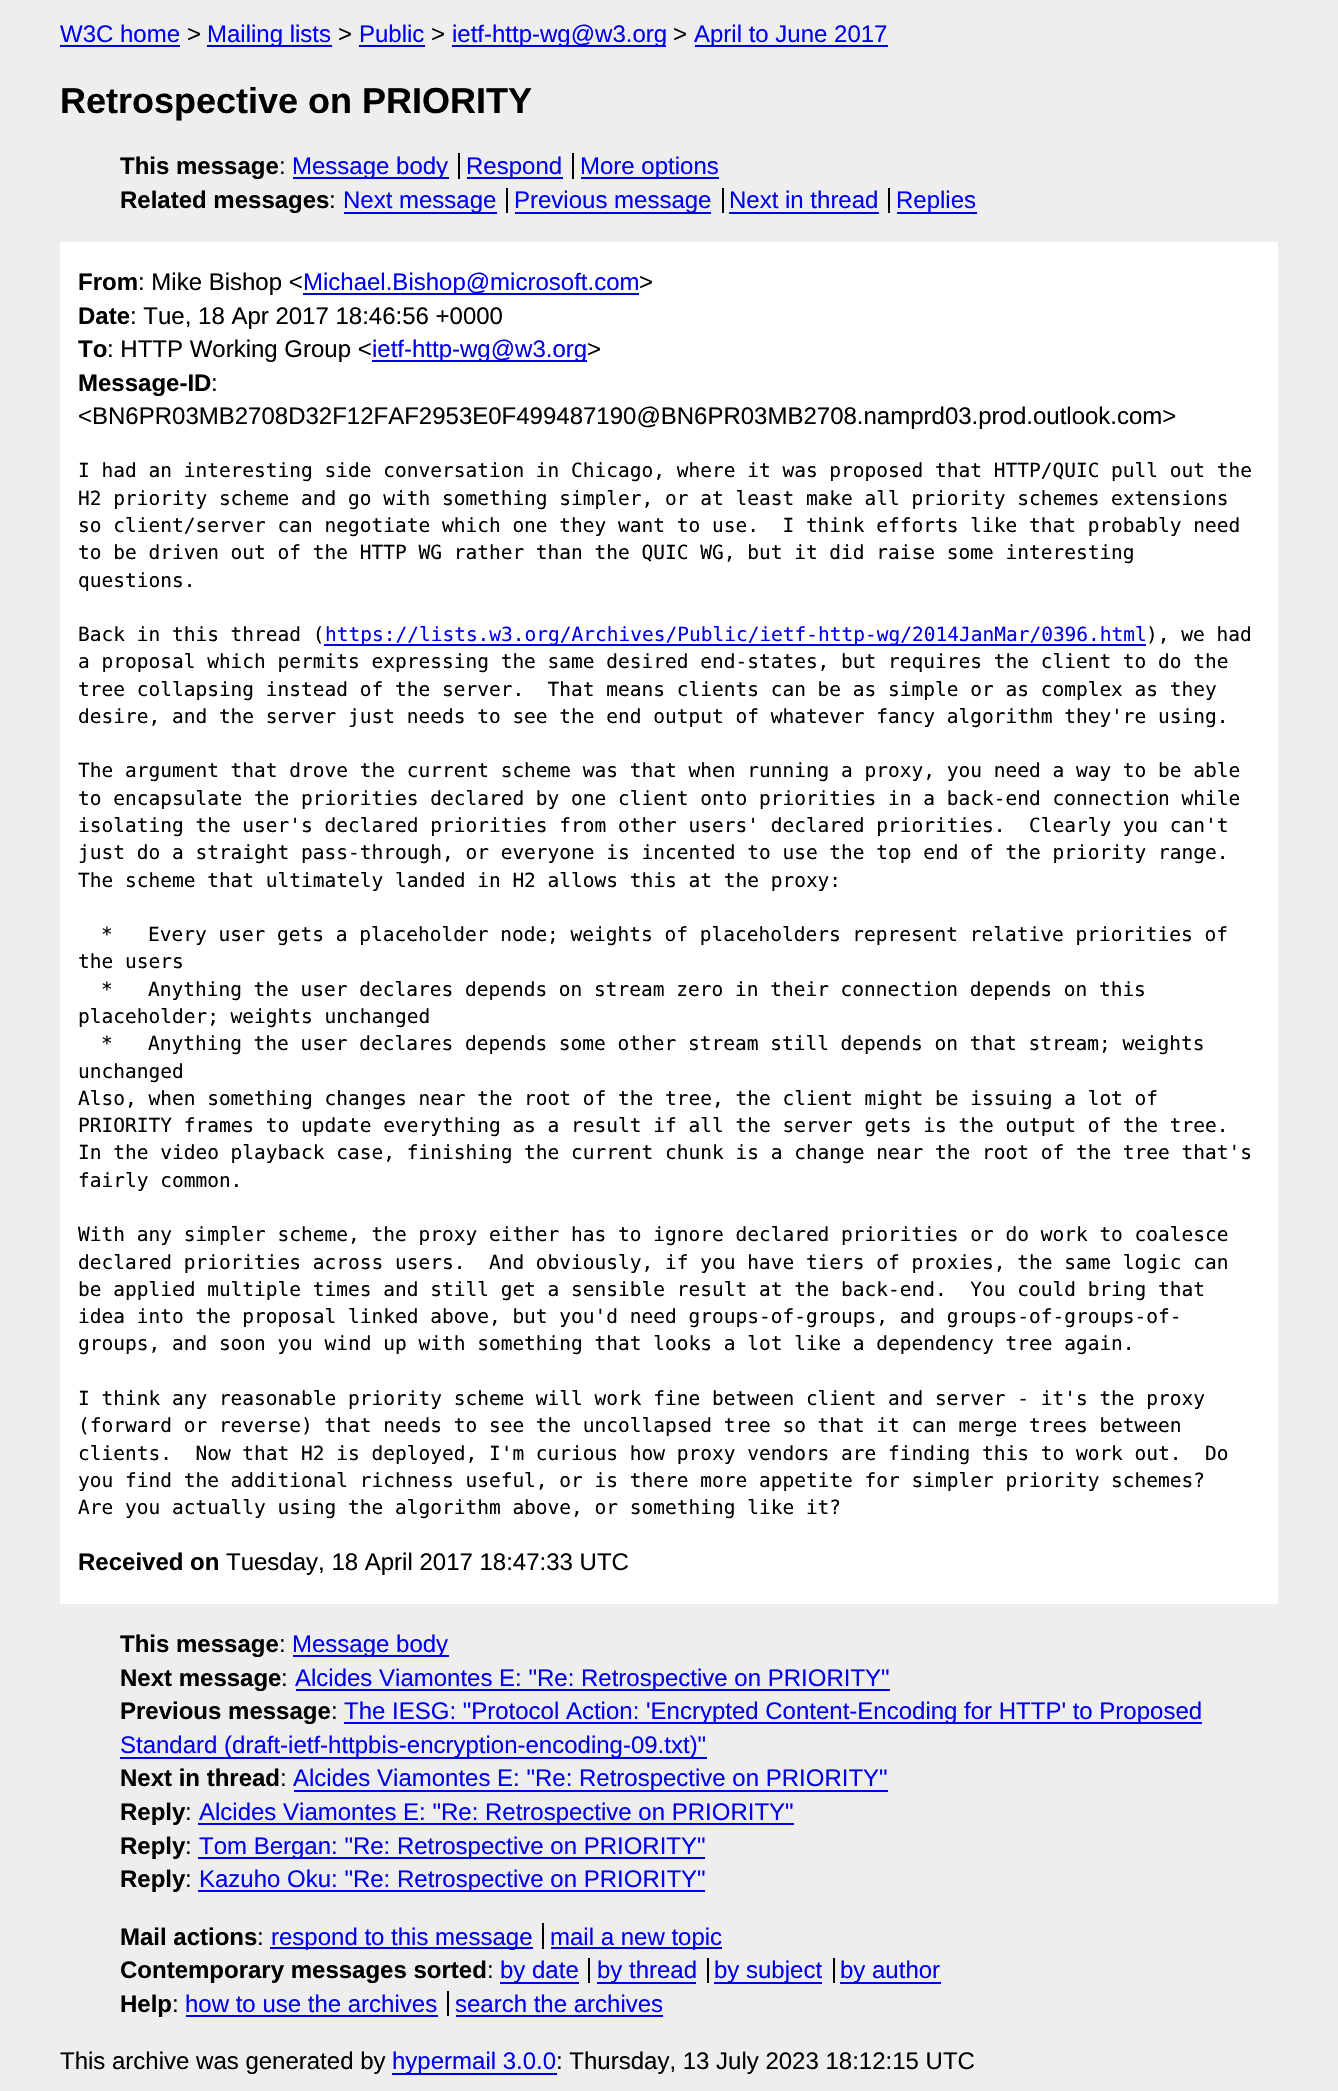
void draw(SkCanvas* c) {
SkPaint p;
p.setAntiAlias(true);
auto F=[&](const char* family, int weight, float size, bool italic = false){SkFontStyle style(weight, SkFontStyle::kNormal_Width,italic ? SkFontStyle::kItalic_Slant : SkFontStyle::kUpright_Slant);SkFont result(fontMgr->matchFamilyStyle(family, style), size);result.setSubpixel(true);return result;};
auto T=[&](const char* s, float x, float y, const SkFont& font){c->drawString(s, x, y, font, p);};
auto R=[&](float x, float y, float w, float h){c->drawRect(SkRect::MakeXYWH(x, y, w, h), p);};
c->clear(0xffeeeeee);
auto f1 = F("Liberation Sans",400,24);
p.setColor(0xff0000ee);
T("W3C home",60,42,f1);
R(60,45,120,2);
p.setColor(0xff000000);
T(">",187,42,f1);
p.setColor(0xff0000ee);
R(207,45,125,2);
T("Mailing lists",207,42,f1);
p.setColor(0xff000000);
T(">",338,42,f1);
p.setColor(0xff0000ee);
T("Public",359,42,f1);
R(359,45,66,2);
p.setColor(0xff000000);
T(">",431,42,f1);
p.setColor(0xff0000ee);
R(452,45,214,2);
T("ietf-http-wg@w3.org",452,42,f1);
p.setColor(0xff000000);
T(">",673,42,f1);
p.setColor(0xff0000ee);
R(695,45,193,2);
T("April to June 2017",694,42,f1);
auto f2 = F("Liberation Sans",700,36);
p.setColor(0xff000000);
T("Retrospective on PRIORITY",60,113,f2);
auto f3 = F("Liberation Sans",700,24);
T("This message",120,174,f3);
T(":",279,174,f1);
p.setColor(0xff0000ee);
R(293,177,156,2);
T("Message body",292,174,f1);
R(467,177,96,2);
T("Respond",466,174,f1);
p.setColor(0xff000000);
R(458,153,2,26);
p.setColor(0xff0000ee);
R(581,177,138,2);
T("More options",580,174,f1);
p.setColor(0xff000000);
R(572,153,2,26);
T("Related messages",120,208,f3);
T(":",329,208,f1);
p.setColor(0xff0000ee);
R(344,212,153,2);
T("Next message",343,208,f1);
R(515,212,196,2);
T("Previous message",514,208,f1);
p.setColor(0xff000000);
R(506,188,2,25);
p.setColor(0xff0000ee);
T("Next in thread",729,208,f1);
p.setColor(0xff000000);
R(722,188,2,25);
p.setColor(0xff0000ee);
R(729,212,150,2);
R(897,212,80,2);
T("Replies",896,208,f1);
p.setColor(0xff000000);
R(888,188,2,25);
p.setColor(0xffffffff);
R(60,242,1218,1362);
p.setColor(0xff000000);
T("From",78,290,f3);
T(": Mike Bishop <",138,290,f1);
p.setColor(0xff0000ee);
R(303,293,336,2);
T("Michael.Bishop@microsoft.com",303,290,f1);
p.setColor(0xff000000);
T(">",639,290,f1);
T("Date",78,324,f3);
T(": Tue, 18 Apr 2017 18:46:56 +0000",130,324,f1);
T("To",78,357,f3);
T(": HTTP Working Group <",107,357,f1);
p.setColor(0xff0000ee);
R(372,360,215,2);
T("ietf-http-wg@w3.org",372,357,f1);
p.setColor(0xff000000);
T(">",587,357,f1);
T("Message-ID",78,391,f3);
T(":",211,391,f1);
T("<BN6PR03MB2708D32F12FAF2953E0F499487190@BN6PR03MB2708.namprd03.prod.outlook.com>",78,424,f1);
auto f4 = F("DejaVu Sans Mono",400,19.5);
T("I had an interesting side conversation in Chicago, where it was proposed that HTTP/QUIC pull out the",78,477,f4);
T("H2 priority scheme and go with something simpler, or at least make all priority schemes extensions",78,505,f4);
T("so client/server can negotiate which one they want to use.  I think efforts like that probably need",78,532,f4);
T("to be driven out of the HTTP WG rather than the QUIC WG, but it did raise some interesting",78,559,f4);
T("questions.",78,587,f4);
T("Back in this thread (",78,641,f4);
p.setColor(0xff0000ee);
R(324,644,822,2);
T("https://lists.w3.org/Archives/Public/ietf-http-wg/2014JanMar/0396.html",325,641,f4);
p.setColor(0xff000000);
T("), we had",1146,641,f4);
T("a proposal which permits expressing the same desired end-states, but requires the client to do the",78,668,f4);
T("tree collapsing instead of the server.  That means clients can be as simple or as complex as they",78,696,f4);
T("desire, and the server just needs to see the end output of whatever fancy algorithm they're using.",78,723,f4);
T("The argument that drove the current scheme was that when running a proxy, you need a way to be able",78,777,f4);
T("to encapsulate the priorities declared by one client onto priorities in a back-end connection while",78,805,f4);
T("isolating the user's declared priorities from other users' declared priorities.  Clearly you can't",78,832,f4);
T("just do a straight pass-through, or everyone is incented to use the top end of the priority range.",78,859,f4);
T("The scheme that ultimately landed in H2 allows this at the proxy:",78,887,f4);
T("*   Every user gets a placeholder node; weights of placeholders represent relative priorities of",101,941,f4);
T("the users",78,968,f4);
T("*   Anything the user declares depends on stream zero in their connection depends on this",101,996,f4);
T("placeholder; weights unchanged",78,1023,f4);
T("*   Anything the user declares depends some other stream still depends on that stream; weights",101,1050,f4);
T("unchanged",78,1078,f4);
T("Also, when something changes near the root of the tree, the client might be issuing a lot of",78,1105,f4);
T("PRIORITY frames to update everything as a result if all the server gets is the output of the tree.",78,1132,f4);
T("In the video playback case, finishing the current chunk is a change near the root of the tree that's",78,1159,f4);
T("fairly common.",78,1187,f4);
T("With any simpler scheme, the proxy either has to ignore declared priorities or do work to coalesce",78,1241,f4);
T("declared priorities across users.  And obviously, if you have tiers of proxies, the same logic can",78,1269,f4);
T("be applied multiple times and still get a sensible result at the back-end.  You could bring that",78,1296,f4);
T("idea into the proposal linked above, but you'd need groups-of-groups, and groups-of-groups-of-",78,1323,f4);
T("groups, and soon you wind up with something that looks a lot like a dependency tree again.",78,1350,f4);
T("I think any reasonable priority scheme will work fine between client and server - it's the proxy",78,1405,f4);
T("(forward or reverse) that needs to see the uncollapsed tree so that it can merge trees between",78,1432,f4);
T("clients.  Now that H2 is deployed, I'm curious how proxy vendors are finding this to work out.  Do",78,1460,f4);
T("you find the additional richness useful, or is there more appetite for simpler priority schemes?",78,1487,f4);
T("Are you actually using the algorithm above, or something like it?",78,1514,f4);
T("Received on",78,1570,f3);
T("Tuesday, 18 April 2017 18:47:33 UTC",226,1570,f1);
T("This message",120,1652,f3);
T(":",279,1652,f1);
p.setColor(0xff0000ee);
R(293,1655,156,2);
T("Message body",292,1652,f1);
p.setColor(0xff000000);
T("Next message",120,1686,f3);
T(":",281,1686,f1);
p.setColor(0xff0000ee);
R(296,1689,594,2);
T("Alcides Viamontes E: \"Re: Retrospective on PRIORITY\"",295,1686,f1);
p.setColor(0xff000000);
T("Previous message",120,1719,f3);
T(":",331,1719,f1);
p.setColor(0xff0000ee);
R(344,1722,858,2);
T("The IESG: \"Protocol Action: 'Encrypted Content-Encoding for HTTP' to Proposed",344,1719,f1);
R(120,1757,587,2);
T("Standard (draft-ietf-httpbis-encryption-encoding-09.txt)\"",120,1753,f1);
p.setColor(0xff000000);
T("Next in thread",120,1786,f3);
T(":",280,1786,f1);
p.setColor(0xff0000ee);
R(294,1790,594,2);
T("Alcides Viamontes E: \"Re: Retrospective on PRIORITY\"",293,1786,f1);
p.setColor(0xff000000);
T("Reply",120,1820,f3);
T(":",185,1820,f1);
p.setColor(0xff0000ee);
R(198,1823,596,2);
T("Alcides Viamontes E: \"Re: Retrospective on PRIORITY\"",199,1820,f1);
p.setColor(0xff000000);
T("Reply",120,1854,f3);
T(":",185,1854,f1);
p.setColor(0xff0000ee);
R(198,1857,507,2);
T("Tom Bergan: \"Re: Retrospective on PRIORITY\"",199,1854,f1);
p.setColor(0xff000000);
T("Reply",120,1887,f3);
T(":",185,1887,f1);
p.setColor(0xff0000ee);
R(198,1890,507,2);
T("Kazuho Oku: \"Re: Retrospective on PRIORITY\"",199,1887,f1);
p.setColor(0xff000000);
T("Mail actions",120,1945,f3);
T(":",257,1945,f1);
p.setColor(0xff0000ee);
R(270,1947,263,2);
T("respond to this message",271,1945,f1);
R(551,1947,171,2);
T("mail a new topic",550,1945,f1);
p.setColor(0xff000000);
R(542,1923,2,26);
T("Contemporary messages sorted",120,1978,f3);
T(":",487,1978,f1);
p.setColor(0xff0000ee);
R(500,1982,79,2);
T("by date",500,1978,f1);
R(597,1982,99,2);
T("by thread",597,1978,f1);
p.setColor(0xff000000);
R(588,1958,2,25);
p.setColor(0xff0000ee);
R(714,1982,108,2);
T("by subject",714,1978,f1);
p.setColor(0xff000000);
R(707,1958,2,25);
p.setColor(0xff0000ee);
R(840,1982,101,2);
T("by author",840,1978,f1);
p.setColor(0xff000000);
R(833,1958,2,25);
T("Help",120,2012,f3);
T(":",172,2012,f1);
p.setColor(0xff0000ee);
T("how to use the archives",185,2012,f1);
R(186,2015,252,2);
T("search the archives",455,2012,f1);
p.setColor(0xff000000);
R(447,1991,2,25);
p.setColor(0xff0000ee);
R(456,2015,207,2);
p.setColor(0xff000000);
T("This archive was generated by",60,2069,f1);
p.setColor(0xff0000ee);
R(392,2073,165,2);
T("hypermail 3.0.0",392,2069,f1);
p.setColor(0xff000000);
T(": Thursday, 13 July 2023 18:12:15 UTC",556,2069,f1);
}
